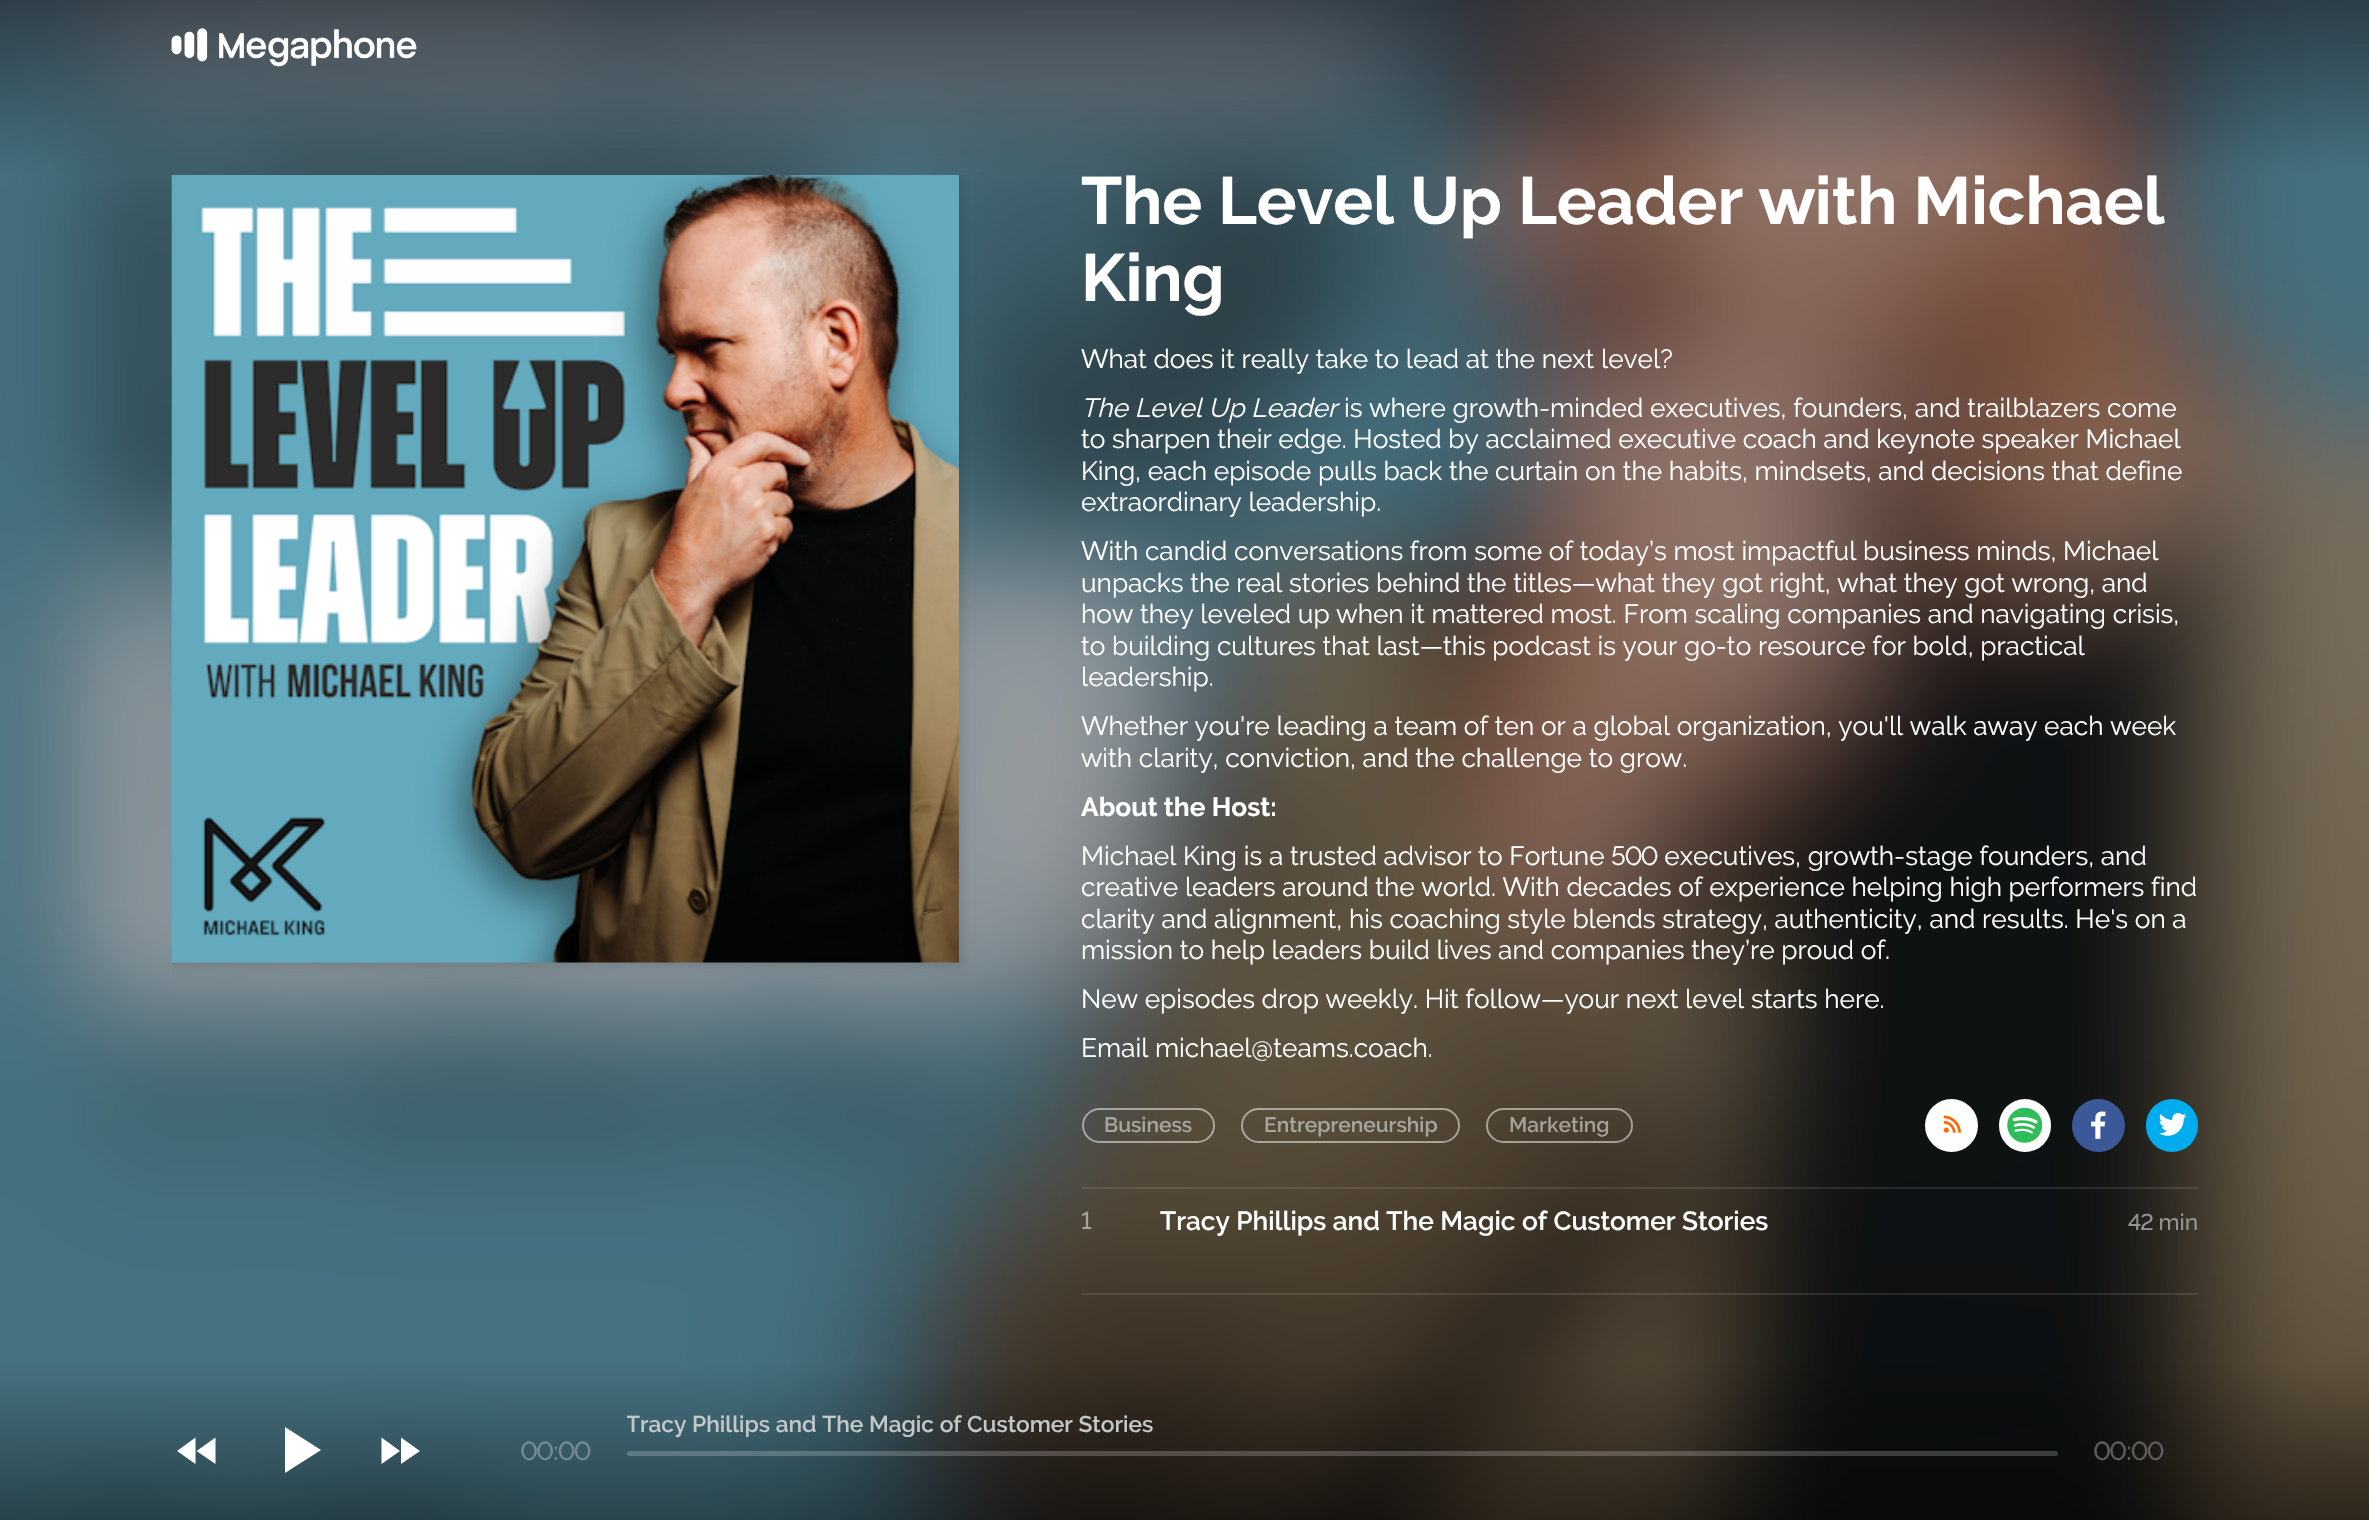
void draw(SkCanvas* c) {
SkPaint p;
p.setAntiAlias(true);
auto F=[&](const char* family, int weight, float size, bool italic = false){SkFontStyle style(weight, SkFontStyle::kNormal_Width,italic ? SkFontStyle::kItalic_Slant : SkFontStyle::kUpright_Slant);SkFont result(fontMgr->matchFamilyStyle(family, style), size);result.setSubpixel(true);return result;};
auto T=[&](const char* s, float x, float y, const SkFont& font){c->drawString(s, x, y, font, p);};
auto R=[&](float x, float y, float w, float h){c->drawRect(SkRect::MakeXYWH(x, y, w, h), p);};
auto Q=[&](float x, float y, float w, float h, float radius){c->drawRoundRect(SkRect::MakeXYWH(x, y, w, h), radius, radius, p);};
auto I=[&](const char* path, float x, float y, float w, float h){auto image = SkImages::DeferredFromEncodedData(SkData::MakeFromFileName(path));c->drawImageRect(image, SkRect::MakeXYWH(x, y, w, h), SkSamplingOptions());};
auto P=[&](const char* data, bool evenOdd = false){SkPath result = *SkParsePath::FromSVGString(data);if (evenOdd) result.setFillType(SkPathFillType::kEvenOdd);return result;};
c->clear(0xffffffff);
I("1.png",0,0,2369,1520);
I("2.png",171,28,246,39);
c->save();
c->clipRect(SkRect::MakeXYWH(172,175,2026,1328));
p.setColor(0x1a000000);
p.setMaskFilter(SkMaskFilter::MakeBlur(kNormal_SkBlurStyle, 4.5));
c->drawRect(SkRect::MakeXYWH(168,172,795,794),p);
p.setMaskFilter(nullptr);
c->restore();
I("3.png",171,175,788,788);
auto f1 = F("Raleway",700,66.5);
p.setColor(0xffffffff);
T("The Level Up Leader with Michael",1081,224,f1);
T("King",1081,301,f1);
auto f2 = F("Raleway",400,26.25);
T("What does it really take to lead at the next level?",1081,368,f2);
auto f3 = F("Raleway",400,26.25,true);
T("The Level Up Leader",1081,417,f3);
T("is where growth-minded executives, founders, and trailblazers come",1344,417,f2);
T("to sharpen their edge. Hosted by acclaimed executive coach and keynote speaker Michael",1081,448,f2);
T("King, each episode pulls back the curtain on the habits, mindsets, and decisions that define",1081,480,f2);
T("extraordinary leadership.",1081,511,f2);
T("With candid conversations from some of today’s most impactful business minds, Michael",1081,560,f2);
T("unpacks the real stories behind the titles—what they got right, what they got wrong, and",1081,592,f2);
T("how they leveled up when it mattered most. From scaling companies and navigating crisis,",1081,623,f2);
T("to building cultures that last—this podcast is your go-to resource for bold, practical",1081,655,f2);
T("leadership.",1081,686,f2);
T("Whether you're leading a team of ten or a global organization, you'll walk away each week",1081,735,f2);
T("with clarity, conviction, and the challenge to grow.",1081,767,f2);
auto f4 = F("Raleway",700,26.25);
T("About the Host:",1081,816,f4);
T("Michael King is a trusted advisor to Fortune 500 executives, growth-stage founders, and",1081,865,f2);
T("creative leaders around the world. With decades of experience helping high performers find",1081,896,f2);
T("clarity and alignment, his coaching style blends strategy, authenticity, and results. He's on a",1081,928,f2);
T("mission to help leaders build lives and companies they’re proud of.",1081,959,f2);
T("New episodes drop weekly. Hit follow—your next level starts here.",1081,1008,f2);
T("Email michael@teams.coach.",1081,1057,f2);
p.setStroke(true);
p.setStrokeWidth(2);
p.setColor(0x80ffffff);
c->drawRoundRect(SkRect::MakeXYWH(1083,1109,131,33),16.5,16.5,p);
auto f5 = F("Raleway",600,21);
p.setStroke(false);
p.setColor(0xffa8a59f);
T("Business",1104,1132,f5);
p.setStroke(true);
p.setColor(0x80ffffff);
c->drawRoundRect(SkRect::MakeXYWH(1242,1109,217,33),16.5,16.5,p);
p.setStroke(false);
p.setColor(0xffa8a59f);
T("Entrepreneurship",1264,1132,f5);
p.setStroke(true);
p.setColor(0x80ffffff);
c->drawRoundRect(SkRect::MakeXYWH(1487,1109,145,33),16.5,16.5,p);
p.setStroke(false);
p.setColor(0xffa49f97);
T("Marketing",1509,1132,f5);
p.setColor(0xffffffff);
c->drawCircle(1951.5,1125.5,26.5,p);
I("4.png",1943,1115,18,18);
Q(1999,1099,52,53,26);
I("5.png",2007,1108,35,35);
p.setColor(0xff3b5998);
c->drawCircle(2098.5,1125.5,26.5,p);
I("6.png",2091,1111,15,28);
p.setColor(0xff00aced);
Q(2146,1099,52,53,26);
I("7.png",2159,1113,28,23);
p.setColor(0x1affffff);
R(1082,1187,1116,2);
auto f6 = F("Raleway",500,24);
p.setColor(0xffa8a59f);
T("1",1081,1229,f6);
auto f7 = F("Raleway",600,26.25);
p.setColor(0xffffffff);
T("Tracy Phillips and The Magic of Customer Stories",1160,1230,f7);
auto f8 = F("Raleway",500,22.75);
p.setColor(0xff969490);
T("42 min",2128,1230,f8);
p.setColor(0x1affffff);
R(1082,1293,1116,2);
p.setColor(0xffffffff);
c->drawPath(P("M196.5 1451l19-13.5v26.5zm-1 13l-18.5-13l18.5-13.5z"),p);
c->drawPath(P("M285 1427l36 23l-36 23z"),p);
c->drawPath(P("M401 1437.5l19 13.5l-19 13zm-19.5 26.5v-26.5l18.5 13.5z"),p);
auto f9 = F("Raleway",500,26.25);
p.setColor(0xff728a92);
T("00:00",521,1460,f9);
c->save();
c->clipRect(SkRect::MakeXYWH(627,1398,1431,53));
auto f10 = F("Raleway",600,22.75);
p.setColor(0xffc2c7c8);
T("Tracy Phillips and The Magic of Customer Stories",626,1432,f10);
c->restore();
p.setColor(0x33ffffff);
Q(627,1451,1431,5,2.5);
p.setColor(0xff5c5b59);
T("00:00",2094,1460,f9);
}
